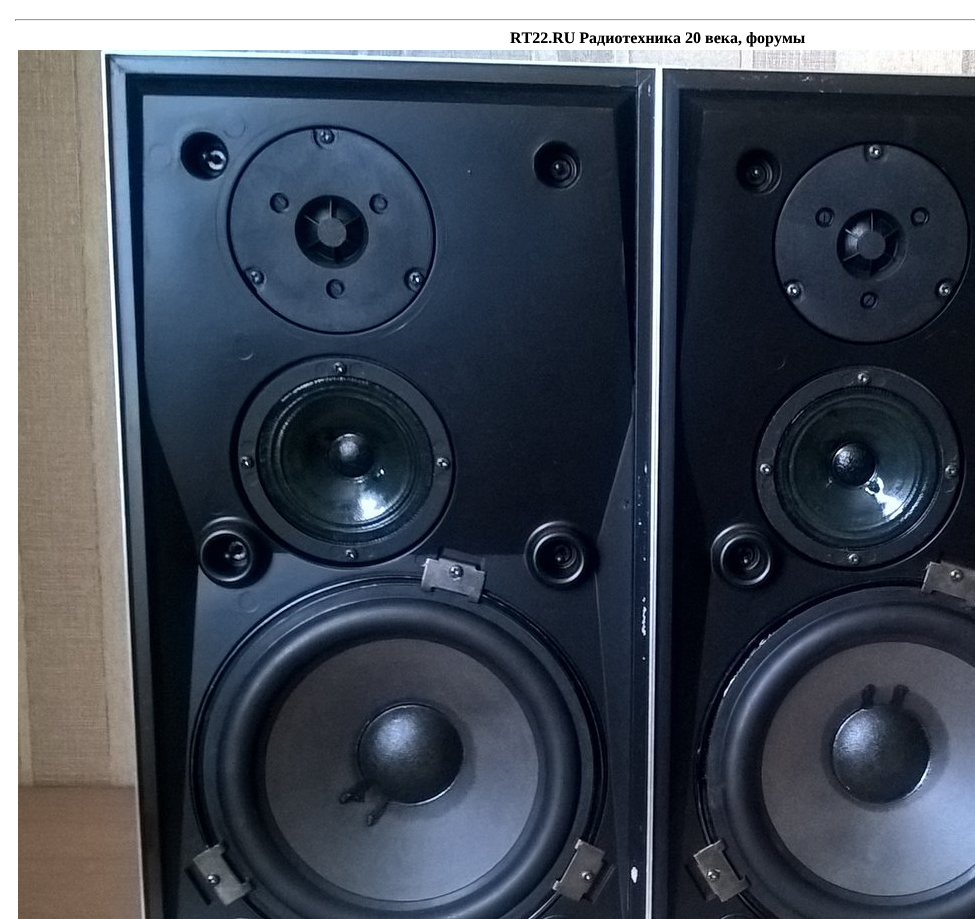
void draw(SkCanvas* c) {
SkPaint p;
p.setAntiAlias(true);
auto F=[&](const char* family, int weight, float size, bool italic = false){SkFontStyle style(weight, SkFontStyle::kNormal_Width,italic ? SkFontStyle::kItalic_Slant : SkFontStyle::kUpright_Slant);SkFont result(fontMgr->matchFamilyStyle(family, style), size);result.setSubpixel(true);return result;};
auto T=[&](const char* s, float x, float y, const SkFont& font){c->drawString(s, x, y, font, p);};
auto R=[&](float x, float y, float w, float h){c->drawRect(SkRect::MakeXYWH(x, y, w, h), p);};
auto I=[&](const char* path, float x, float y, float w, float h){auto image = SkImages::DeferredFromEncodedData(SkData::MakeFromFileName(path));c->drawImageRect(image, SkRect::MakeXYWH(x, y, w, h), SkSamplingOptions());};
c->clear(0xffffffff);
p.setColor(0xff9f9f9f);
R(15,19,960,1);
p.setColor(0xffeeeeee);
R(15,20,960,1);
p.setColor(0xff9f9f9f);
R(15,19,1,2);
auto f1 = F("Liberation Serif",700,16);
p.setColor(0xff000000);
T("RT22.RU Радиотехника 20 века, форумы",510,43,f1);
I("1.png",18,50,957,869);
}
